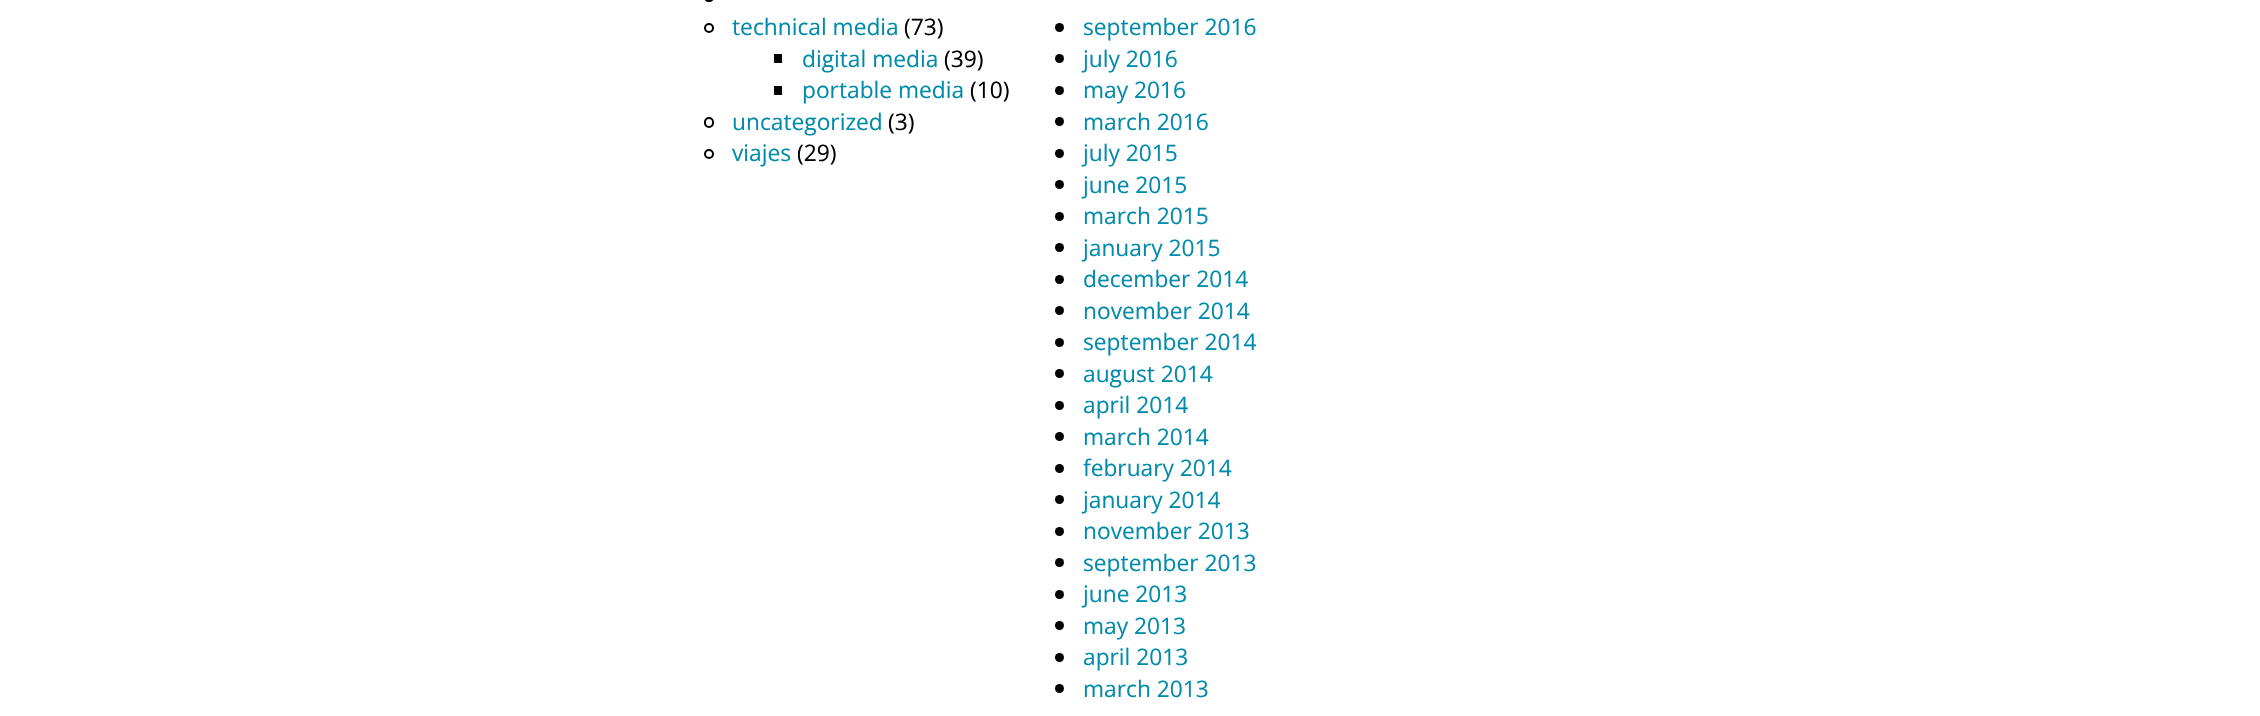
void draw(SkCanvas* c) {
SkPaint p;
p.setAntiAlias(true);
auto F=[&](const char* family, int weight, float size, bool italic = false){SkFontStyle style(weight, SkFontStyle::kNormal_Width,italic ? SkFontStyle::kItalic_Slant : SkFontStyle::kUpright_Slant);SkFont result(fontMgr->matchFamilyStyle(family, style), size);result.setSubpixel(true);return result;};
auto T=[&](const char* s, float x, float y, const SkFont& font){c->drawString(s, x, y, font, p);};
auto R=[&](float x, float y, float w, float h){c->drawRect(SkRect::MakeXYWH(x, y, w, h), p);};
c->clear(0xffffffff);
p.setStroke(true);
p.setStrokeWidth(2);
p.setColor(0xff000000);
c->drawRoundRect(SkRect::MakeXYWH(705,-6,8,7),4,4,p);
c->drawCircle(709,28,4,p);
auto f1 = F("Open Sans",400,22.75);
p.setStroke(false);
p.setColor(0xff008aab);
T("technical media",732,35,f1);
p.setColor(0xff000000);
T("(73)",904,35,f1);
R(774,54,8,9);
p.setColor(0xff008aab);
T("digital media",802,67,f1);
p.setColor(0xff000000);
T("(39)",944,67,f1);
R(774,86,8,9);
p.setColor(0xff008aab);
T("portable media",802,98,f1);
p.setColor(0xff000000);
T("(10)",970,98,f1);
p.setStroke(true);
c->drawRoundRect(SkRect::MakeXYWH(705,118,8,9),4,4,p);
p.setStroke(false);
p.setColor(0xff008aab);
T("uncategorized",732,130,f1);
p.setColor(0xff000000);
T("(3)",888,130,f1);
p.setStroke(true);
c->drawCircle(709,154,4,p);
p.setStroke(false);
p.setColor(0xff008aab);
T("viajes",732,161,f1);
p.setColor(0xff000000);
T("(29)",797,161,f1);
c->drawCircle(1059.5,27.5,4.5,p);
p.setColor(0xff008aab);
T("september 2016",1083,35,f1);
p.setColor(0xff000000);
c->drawCircle(1059.5,58.5,4.5,p);
p.setColor(0xff008aab);
T("july 2016",1083,67,f1);
p.setColor(0xff000000);
c->drawCircle(1059.5,90.5,4.5,p);
p.setColor(0xff008aab);
T("may 2016",1083,98,f1);
p.setColor(0xff000000);
c->drawCircle(1059.5,121.5,4.5,p);
p.setColor(0xff008aab);
T("march 2016",1083,130,f1);
p.setColor(0xff000000);
c->drawCircle(1059.5,153.5,4.5,p);
p.setColor(0xff008aab);
T("july 2015",1083,161,f1);
p.setColor(0xff000000);
c->drawCircle(1059.5,184.5,4.5,p);
p.setColor(0xff008aab);
T("june 2015",1083,193,f1);
p.setColor(0xff000000);
c->drawCircle(1059.5,216.5,4.5,p);
p.setColor(0xff008aab);
T("march 2015",1083,224,f1);
p.setColor(0xff000000);
c->drawCircle(1059.5,247.5,4.5,p);
p.setColor(0xff008aab);
T("january 2015",1083,256,f1);
p.setColor(0xff000000);
c->drawCircle(1059.5,279.5,4.5,p);
p.setColor(0xff008aab);
T("december 2014",1083,287,f1);
p.setColor(0xff000000);
c->drawCircle(1059.5,310.5,4.5,p);
p.setColor(0xff008aab);
T("november 2014",1083,319,f1);
p.setColor(0xff000000);
c->drawCircle(1059.5,342.5,4.5,p);
p.setColor(0xff008aab);
T("september 2014",1083,350,f1);
p.setColor(0xff000000);
c->drawCircle(1059.5,373.5,4.5,p);
p.setColor(0xff008aab);
T("august 2014",1083,382,f1);
p.setColor(0xff000000);
c->drawCircle(1059.5,405.5,4.5,p);
p.setColor(0xff008aab);
T("april 2014",1083,413,f1);
p.setColor(0xff000000);
c->drawCircle(1059.5,436.5,4.5,p);
p.setColor(0xff008aab);
T("march 2014",1083,445,f1);
p.setColor(0xff000000);
c->drawCircle(1059.5,468.5,4.5,p);
p.setColor(0xff008aab);
T("february 2014",1083,476,f1);
p.setColor(0xff000000);
c->drawCircle(1059.5,499.5,4.5,p);
p.setColor(0xff008aab);
T("january 2014",1083,508,f1);
p.setColor(0xff000000);
c->drawCircle(1059.5,531.5,4.5,p);
p.setColor(0xff008aab);
T("november 2013",1083,539,f1);
p.setColor(0xff000000);
c->drawCircle(1059.5,562.5,4.5,p);
p.setColor(0xff008aab);
T("september 2013",1083,571,f1);
p.setColor(0xff000000);
c->drawCircle(1059.5,594.5,4.5,p);
p.setColor(0xff008aab);
T("june 2013",1083,602,f1);
p.setColor(0xff000000);
c->drawCircle(1059.5,625.5,4.5,p);
p.setColor(0xff008aab);
T("may 2013",1083,634,f1);
p.setColor(0xff000000);
c->drawCircle(1059.5,657.5,4.5,p);
p.setColor(0xff008aab);
T("april 2013",1083,665,f1);
p.setColor(0xff000000);
c->drawCircle(1059.5,688.5,4.5,p);
p.setColor(0xff008aab);
T("march 2013",1083,697,f1);
}
